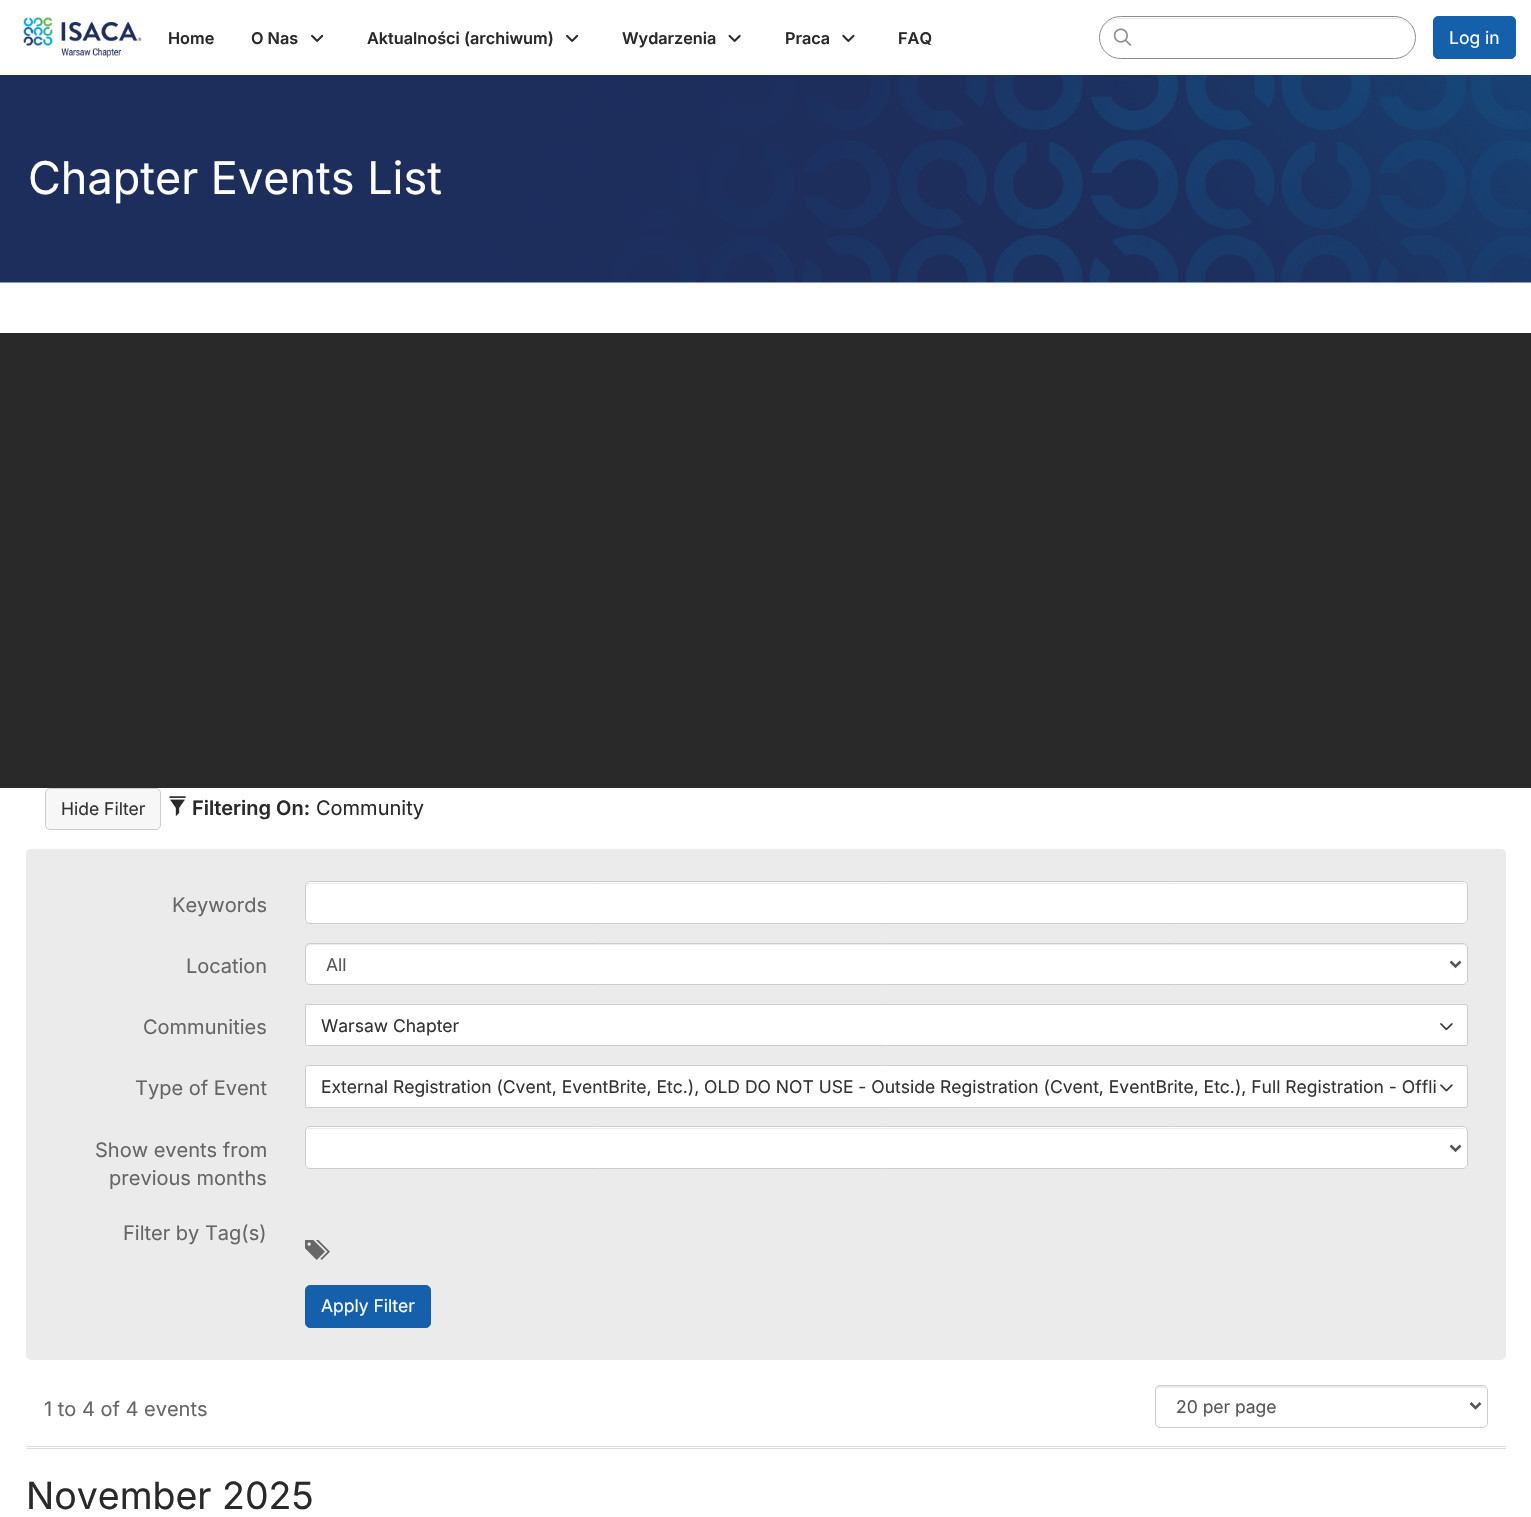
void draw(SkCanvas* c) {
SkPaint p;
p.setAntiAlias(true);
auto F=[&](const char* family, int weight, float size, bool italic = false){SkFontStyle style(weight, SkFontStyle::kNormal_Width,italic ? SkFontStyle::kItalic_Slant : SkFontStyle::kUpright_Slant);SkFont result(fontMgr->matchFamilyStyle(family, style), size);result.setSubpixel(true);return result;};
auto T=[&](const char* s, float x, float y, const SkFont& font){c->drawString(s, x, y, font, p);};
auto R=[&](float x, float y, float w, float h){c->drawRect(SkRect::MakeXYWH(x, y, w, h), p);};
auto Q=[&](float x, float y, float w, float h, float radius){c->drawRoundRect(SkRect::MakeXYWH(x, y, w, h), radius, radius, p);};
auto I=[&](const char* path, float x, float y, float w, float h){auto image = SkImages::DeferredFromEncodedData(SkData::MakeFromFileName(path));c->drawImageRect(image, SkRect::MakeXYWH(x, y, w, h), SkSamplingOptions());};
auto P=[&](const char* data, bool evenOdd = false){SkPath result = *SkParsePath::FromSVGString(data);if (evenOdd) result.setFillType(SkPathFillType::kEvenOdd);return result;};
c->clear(0xffffffff);
I("1.png",23,17,119,41);
auto f1 = F("Inter",600,16.25);
p.setColor(0xff292929);
T("Home",168,44,f1);
T("O Nas",251,44,f1);
I("2.png",311,34,13,8);
T("Aktualności (archiwum)",367,44,f1);
I("2.png",566,34,13,8);
T("Wydarzenia",622,44,f1);
I("3.png",728,34,13,8);
T("Praca",785,44,f1);
I("4.png",842,34,13,8);
T("FAQ",898,44,f1);
p.setColor(0xffececec);
c->drawPath(P("M1120 19h275c11 0 20 9 20 20c0-12-9-21-20-21h-275c-11 0-20 9-20 21c0-11 9-20 20-20z"),p);
p.setStroke(true);
p.setStrokeWidth(1);
p.setColor(0xff8c8c8c);
c->drawRoundRect(SkRect::MakeXYWH(1099.5,16.5,316,42),21,21,p);
I("5.png",1113,28,19,18);
p.setStroke(false);
p.setColor(0xff1460aa);
c->drawRoundRect(SkRect::MakeXYWH(1433.5,16.5,82,42),4.5,4.5,p);
p.setStroke(true);
c->drawRoundRect(SkRect::MakeXYWH(1433.5,16.5,82,42),4.5,4.5,p);
auto f2 = F("Inter",400,17.5);
p.setStroke(false);
p.setColor(0xffffffff);
T("Log in",1449,44,f2);
I("6.png",0,75,1531,208);
auto f3 = F("Inter",400,45);
T("Chapter Events List",28,194,f3);
p.setColor(0xff292929);
R(0,333,1531,455);
p.setColor(0xfff7f7f7);
c->drawRoundRect(SkRect::MakeXYWH(45.5,788.5,115,41),4.5,4.5,p);
p.setStroke(true);
p.setColor(0xffcccccc);
c->drawRoundRect(SkRect::MakeXYWH(45.5,788.5,115,41),4.5,4.5,p);
p.setStroke(false);
p.setColor(0xff333333);
T("Hide Filter",61,815,f2);
I("7.png",169,796,17,21);
auto f4 = F("Inter",600,20);
p.setColor(0xff292929);
T("Filtering On:",192,815,f4);
auto f5 = F("Inter",400,20);
T("Community",316,815,f5);
p.setColor(0xffebebeb);
Q(26,849,1480,511,5);
p.setColor(0xff666666);
T("Keywords",172,912,f5);
p.setColor(0xffffffff);
Q(305,881,1163,43,5);
p.setColor(0xffececec);
c->drawPath(P("M310 884h1152c3 0 4 1 4 4c0-3-1-5-4-5h-1152c-3 0-4 2-4 5c0-3 2-4 4-4z"),p);
p.setStroke(true);
p.setColor(0xffcccccc);
c->drawRoundRect(SkRect::MakeXYWH(305.5,881.5,1162,42),4.5,4.5,p);
p.setStroke(false);
p.setColor(0xff666666);
T("Location",186,973,f5);
p.setColor(0xffffffff);
Q(305,943,1163,42,5);
p.setColor(0xffececec);
c->drawPath(P("M310 945h1152c3 0 4 2 4 4c0-3-1-5-4-5h-1152c-3 0-4 2-4 5c0-2 2-4 4-4z"),p);
p.setStroke(true);
p.setColor(0xffcccccc);
c->drawRoundRect(SkRect::MakeXYWH(305.5,943.5,1162,41),4.5,4.5,p);
p.setStrokeWidth(2.5);
p.setColor(0xff555555);
c->drawPath(P("M1450.5 961.5l5 5l5-5"),p);
p.setStroke(false);
T("All",326,971,f2);
p.setColor(0xff666666);
T("Communities",143,1034,f5);
p.setColor(0xffffffff);
c->drawRoundRect(SkRect::MakeXYWH(305.5,1004.5,1162,41),2,2,p);
p.setStroke(true);
p.setStrokeWidth(1);
p.setColor(0xffcccccc);
c->drawRoundRect(SkRect::MakeXYWH(305.5,1004.5,1162,41),2,2,p);
p.setStroke(false);
p.setColor(0xff333333);
T("Warsaw Chapter",321,1032,f2);
I("8.png",1440,1023,13,8);
p.setColor(0xff666666);
T("Type of Event",135,1095,f5);
p.setColor(0xffffffff);
c->drawRoundRect(SkRect::MakeXYWH(305.5,1065.5,1162,42),2,2,p);
p.setStroke(true);
p.setColor(0xffcccccc);
c->drawRoundRect(SkRect::MakeXYWH(305.5,1065.5,1162,42),2,2,p);
p.setStroke(false);
p.setColor(0xff333333);
T("External Registration (Cvent, EventBrite, Etc.), OLD DO NOT USE - Outside Registration (Cvent, EventBrite, Etc.), Full Registration - Offli",321,1093,f2);
I("9.png",1440,1084,13,8);
p.setColor(0xff666666);
T("Show events from",95,1157,f5);
T("previous months",109,1185,f5);
p.setColor(0xffffffff);
Q(305,1126,1163,43,5);
p.setColor(0xffececec);
c->drawPath(P("M310 1129h1152c2 0 3 0 4 1c-1-1-2-2-4-2h-1152c-2 0-4 2-4 4c0-2 2-3 4-3z"),p);
p.setStroke(true);
p.setColor(0xffcccccc);
c->drawRoundRect(SkRect::MakeXYWH(305.5,1126.5,1162,42),4.5,4.5,p);
p.setStrokeWidth(2.5);
p.setColor(0xff555555);
c->drawPath(P("M1450.5 1145.5l5 5l5-5"),p);
p.setStroke(false);
p.setColor(0xff666666);
T("Filter by Tag(s)",123,1240,f5);
I("10.png",305,1240,25,20);
p.setColor(0xff1460aa);
c->drawRoundRect(SkRect::MakeXYWH(305.5,1285.5,125,42),4.5,4.5,p);
p.setStroke(true);
p.setStrokeWidth(1);
c->drawRoundRect(SkRect::MakeXYWH(305.5,1285.5,125,42),4.5,4.5,p);
p.setStroke(false);
p.setColor(0xffffffff);
T("Apply Filter",321,1312,f2);
p.setColor(0xffdddddd);
R(26,1448,1480,1);
R(26,1446,1480,1);
p.setColor(0xff666666);
T("1 to 4 of 4 events",44,1416,f5);
p.setColor(0xffececec);
c->drawPath(P("M1160 1388h322c3 0 4 1 4 3v-1c0-2-2-4-4-4h-322c-2 0-4 2-4 4v1c0-2 2-3 4-3z"),p);
p.setStroke(true);
p.setColor(0xffcccccc);
c->drawRoundRect(SkRect::MakeXYWH(1155.5,1385.5,332,42),4.5,4.5,p);
p.setStrokeWidth(2.5);
p.setColor(0xff555555);
c->drawPath(P("M1470.5 1403l5 5l5-5"),p);
p.setStroke(false);
T("20 per page",1176,1413,f2);
auto f6 = F("Inter",400,37.5);
p.setColor(0xff292929);
T("November 2025",26,1509,f6);
}
